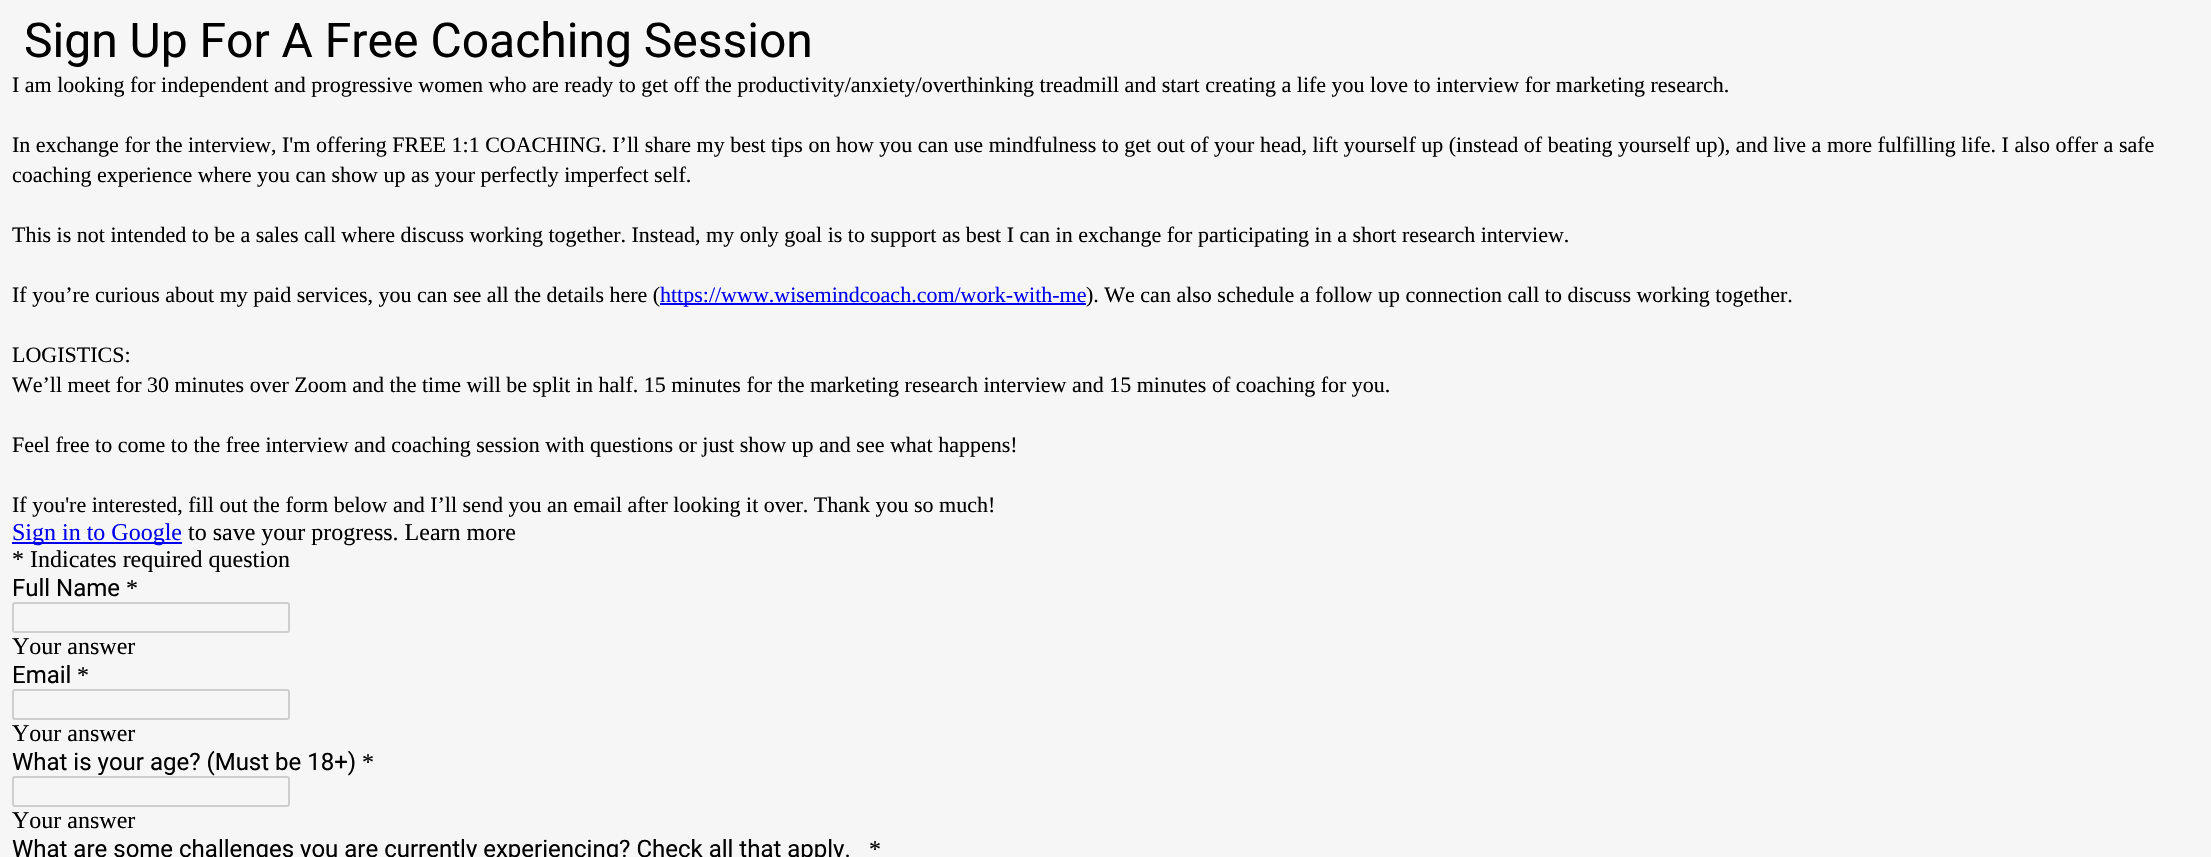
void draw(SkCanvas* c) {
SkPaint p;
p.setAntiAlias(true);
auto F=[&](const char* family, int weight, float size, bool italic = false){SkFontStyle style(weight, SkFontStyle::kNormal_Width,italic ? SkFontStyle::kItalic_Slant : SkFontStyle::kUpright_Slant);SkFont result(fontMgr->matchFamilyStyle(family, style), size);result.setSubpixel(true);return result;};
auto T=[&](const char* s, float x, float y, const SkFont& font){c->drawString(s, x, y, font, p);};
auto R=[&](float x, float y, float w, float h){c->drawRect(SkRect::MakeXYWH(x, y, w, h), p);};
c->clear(0xfff6f6f6);
auto f1 = F("Roboto",400,48);
p.setColor(0xff000000);
T("Sign Up For A Free Coaching Session",24,57,f1);
auto f2 = F("Liberation Serif",400,22);
T("I am looking for independent and progressive women who are ready to get off the productivity/anxiety/overthinking treadmill and start creating a life you love to interview for marketing research.",12,92,f2);
T("In exchange for the interview, I'm offering FREE 1:1 COACHING. I’ll share my best tips on how you can use mindfulness to get out of your head, lift yourself up (instead of beating yourself up), and live a more fulfilling life. I also offer a safe",12,152,f2);
T("coaching experience where you can show up as your perfectly imperfect self.",12,182,f2);
T("This is not intended to be a sales call where discuss working together. Instead, my only goal is to support as best I can in exchange for participating in a short research interview.",12,242,f2);
T("If you’re curious about my paid services, you can see all the details here (",12,302,f2);
p.setColor(0xff0000ee);
R(660,303,426,2);
T("https://www.wisemindcoach.com/work-with-me",660,302,f2);
p.setColor(0xff000000);
T("). We can also schedule a follow up connection call to discuss working together.",1086,302,f2);
T("LOGISTICS:",12,362,f2);
T("We’ll meet for 30 minutes over Zoom and the time will be split in half. 15 minutes for the marketing research interview and 15 minutes of coaching for you.",12,392,f2);
T("Feel free to come to the free interview and coaching session with questions or just show up and see what happens!",12,452,f2);
T("If you're interested, fill out the form below and I’ll send you an email after looking it over. Thank you so much!",12,512,f2);
p.setColor(0xff0000ee);
R(12,542,170,2);
auto f3 = F("Liberation Serif",400,24);
T("Sign in to Google",12,540,f3);
p.setColor(0xff000000);
T("to save your progress. Learn more",188,540,f3);
T("* Indicates required question",12,567,f3);
auto f4 = F("Roboto",400,24);
T("Full Name",12,596,f4);
T("*",126,596,f3);
p.setStroke(true);
p.setStrokeWidth(2);
p.setColor(0xffcecece);
c->drawRoundRect(SkRect::MakeXYWH(13,603,276,29),2,2,p);
p.setStroke(false);
p.setColor(0xff000000);
T("Your answer",12,654,f3);
T("Email",12,683,f4);
T("*",77,683,f3);
p.setStroke(true);
p.setColor(0xffcecece);
c->drawRoundRect(SkRect::MakeXYWH(13,690,276,29),2,2,p);
p.setStroke(false);
p.setColor(0xff000000);
T("Your answer",12,741,f3);
T("What is your age? (Must be 18+)",12,770,f4);
T("*",362,770,f3);
p.setStroke(true);
p.setColor(0xffcecece);
c->drawRoundRect(SkRect::MakeXYWH(13,777,276,29),2,2,p);
p.setStroke(false);
p.setColor(0xff000000);
T("Your answer",12,828,f3);
T("What are some challenges you are currently experiencing? Check all that apply.",12,857,f4);
T("*",869,857,f3);
}
